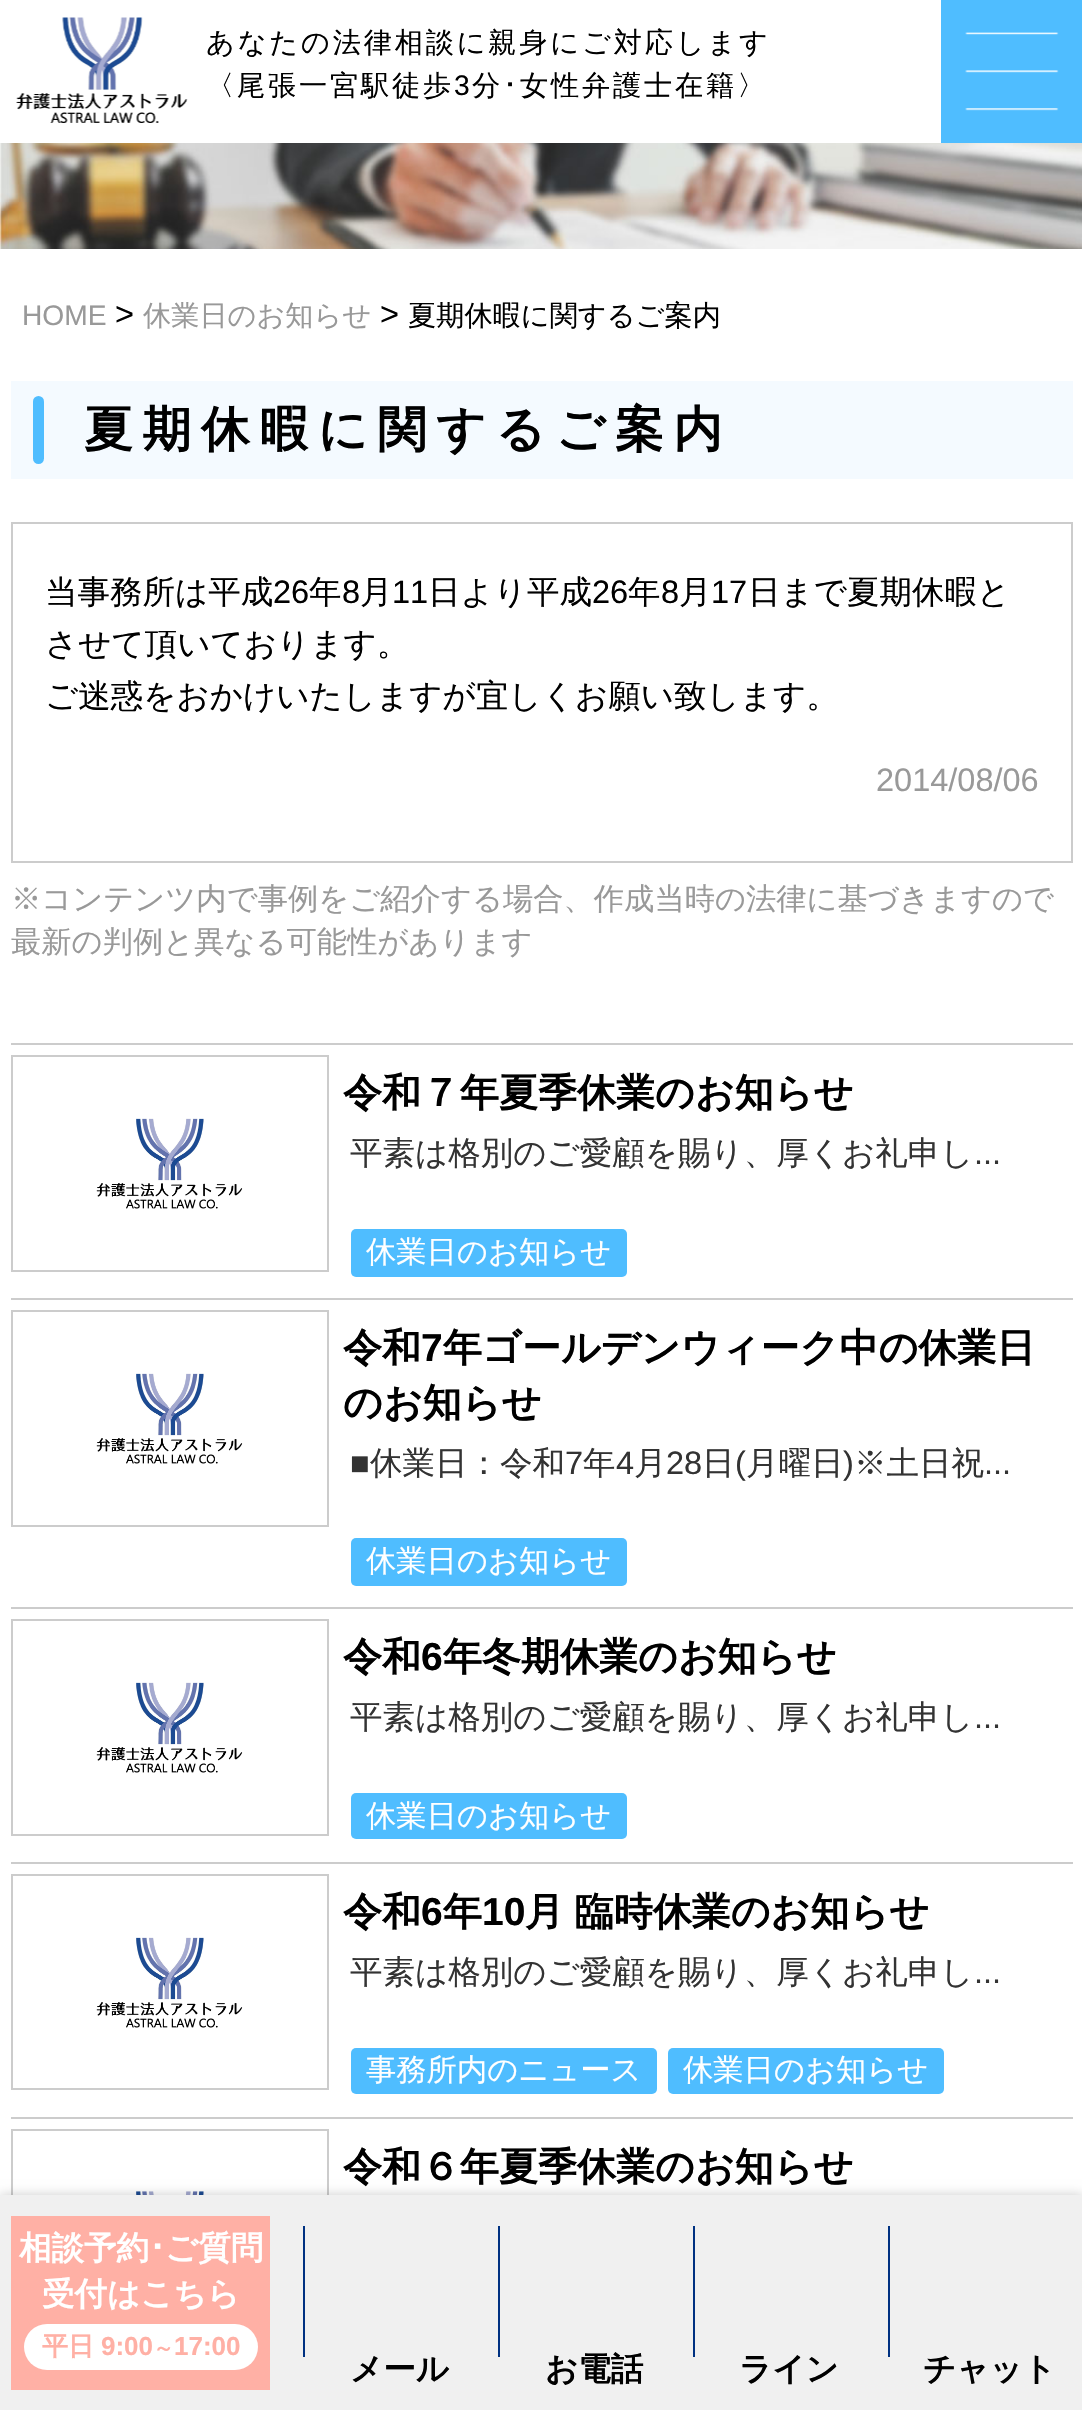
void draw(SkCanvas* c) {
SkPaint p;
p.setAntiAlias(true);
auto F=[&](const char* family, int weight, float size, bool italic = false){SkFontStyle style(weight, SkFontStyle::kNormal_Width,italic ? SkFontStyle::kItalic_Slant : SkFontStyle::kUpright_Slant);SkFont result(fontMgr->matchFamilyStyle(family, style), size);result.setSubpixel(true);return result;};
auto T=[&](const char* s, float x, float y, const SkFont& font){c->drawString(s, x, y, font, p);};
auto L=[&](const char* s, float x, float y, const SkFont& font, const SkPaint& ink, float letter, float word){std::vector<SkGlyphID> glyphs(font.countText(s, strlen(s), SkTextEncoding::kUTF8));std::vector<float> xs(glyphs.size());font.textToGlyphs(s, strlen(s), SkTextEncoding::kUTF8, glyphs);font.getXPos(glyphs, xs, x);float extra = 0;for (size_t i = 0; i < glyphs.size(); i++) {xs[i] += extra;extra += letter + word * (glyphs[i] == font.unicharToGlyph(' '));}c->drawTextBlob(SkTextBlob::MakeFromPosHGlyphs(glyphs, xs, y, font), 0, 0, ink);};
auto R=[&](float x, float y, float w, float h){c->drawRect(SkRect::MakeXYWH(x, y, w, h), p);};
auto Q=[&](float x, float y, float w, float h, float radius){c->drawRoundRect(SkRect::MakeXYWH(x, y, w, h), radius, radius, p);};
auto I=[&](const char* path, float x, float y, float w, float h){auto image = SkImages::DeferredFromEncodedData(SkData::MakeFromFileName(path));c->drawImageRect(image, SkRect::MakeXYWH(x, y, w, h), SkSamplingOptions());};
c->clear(0xffffffff);
I("1.png",16,17,172,106);
auto f1 = F("WenQuanYi Zen Hei",500,28.2);
p.setColor(0xff000000);
L("あなたの法律相談に親身にご対応します",206,52,f1,p,2.8,0);
L("〈尾張一宮駅徒歩",206,95,f1,p,2.8,0);
auto f2 = F("Liberation Sans",400,28.2);
L("3",454,95,f2,p,2.8,0);
L("分",472,95,f1,p,2.8,0);
auto f3 = F("IPAPGothic",400,28.2);
L("･",503,95,f3,p,2.8,0);
L("女性弁護士在籍〉",520,95,f1,p,2.8,0);
p.setColor(0xff4fbdff);
R(941,0,141,143);
I("2.png",965,32,94,79);
I("3.png",0,143,1082,106);
p.setColor(0xff999999);
T("HOME",22,325,f2);
auto f4 = F("Liberation Sans",400,32.5);
p.setColor(0xff000000);
T(">",115,325,f4);
p.setColor(0xff999999);
T("休業日のお知らせ",143,325,f1);
p.setColor(0xff000000);
T(">",380,325,f4);
T("夏期休暇に関するご案内",408,325,f1);
p.setColor(0xfff4faff);
R(11,381,1062,98);
p.setColor(0xff4fbdff);
Q(33,396,11,68,5.5);
auto f5 = F("WenQuanYi Zen Hei",700,48.75);
p.setColor(0xff000000);
L("夏期休暇に関するご案内",84,446,f5,p,9.75,0);
p.setStroke(true);
p.setStrokeWidth(2);
p.setColor(0xffcccccc);
c->drawRect(SkRect::MakeXYWH(12,523,1060,339),p);
auto f6 = F("WenQuanYi Zen Hei",500,32.5);
p.setStroke(false);
p.setColor(0xff000000);
T("当事務所は平成",45,603,f6);
T("26",273,603,f4);
T("年",309,603,f6);
T("8",342,603,f4);
T("月",360,603,f6);
T("11",392,603,f4);
T("日より平成",428,603,f6);
T("26",592,603,f4);
T("年",628,603,f6);
T("8",661,603,f4);
T("月",679,603,f6);
T("17",711,603,f4);
T("日まで夏期休暇と",748,603,f6);
T("させて頂いております。",45,655,f6);
T("ご迷惑をおかけいたしますが宜しくお願い致します。",45,707,f6);
p.setColor(0xff999999);
T("2014/08/06",876,791,f4);
auto f7 = F("WenQuanYi Zen Hei",500,30.3);
T("※コンテンツ内で事例をご紹介する場合、作成当時の法律に基づきますので",11,909,f7);
T("最新の判例と異なる可能性があります",11,952,f7);
p.setColor(0xffcccccc);
R(11,1043,1062,2);
R(11,1298,1062,2);
I("4.png",96,1118,147,91);
p.setStroke(true);
c->drawRect(SkRect::MakeXYWH(12,1056,316,215),p);
auto f8 = F("WenQuanYi Zen Hei",700,39);
p.setStroke(false);
p.setColor(0xff000000);
T("令和７年夏季休業のお知らせ",343,1106,f8);
p.setColor(0xff333333);
T("平素は格別のご愛顧を賜り、厚くお礼申し",350,1164,f6);
T("...",974,1164,f4);
p.setColor(0xff4fbdff);
Q(351,1229,276,48,5);
p.setColor(0xffffffff);
T("休業日のお知らせ",366,1262,f7);
p.setColor(0xffcccccc);
R(11,1607,1062,2);
I("4.png",96,1373,147,91);
p.setStroke(true);
c->drawRect(SkRect::MakeXYWH(12,1311,316,215),p);
p.setStroke(false);
p.setColor(0xff000000);
T("令和",343,1361,f8);
auto f9 = F("Liberation Sans",700,39);
T("7",421,1361,f9);
T("年ゴールデンウィーク中の休業日",443,1361,f8);
T("のお知らせ",343,1416,f8);
p.setColor(0xff333333);
T("■",350,1474,f4);
T("休業日：令和",370,1474,f6);
T("7",565,1474,f4);
T("年",583,1474,f6);
T("4",616,1474,f4);
T("月",634,1474,f6);
T("28",666,1474,f4);
T("日",702,1474,f6);
T("(",735,1474,f4);
T("月曜日",746,1474,f6);
T(")",843,1474,f4);
T("※土日祝",854,1474,f6);
T("...",984,1474,f4);
p.setColor(0xff4fbdff);
Q(351,1538,276,48,5);
p.setColor(0xffffffff);
T("休業日のお知らせ",366,1571,f7);
p.setColor(0xffcccccc);
R(11,1862,1062,2);
I("4.png",96,1682,147,91);
p.setStroke(true);
c->drawRect(SkRect::MakeXYWH(12,1620,316,215),p);
p.setStroke(false);
p.setColor(0xff000000);
T("令和",343,1670,f8);
T("6",421,1670,f9);
T("年冬期休業のお知らせ",443,1670,f8);
p.setColor(0xff333333);
T("平素は格別のご愛顧を賜り、厚くお礼申し",350,1728,f6);
T("...",974,1728,f4);
p.setColor(0xff4fbdff);
Q(351,1793,276,46,5);
p.setColor(0xffffffff);
T("休業日のお知らせ",366,1826,f7);
p.setColor(0xffcccccc);
R(11,2117,1062,2);
I("4.png",96,1937,147,91);
p.setStroke(true);
c->drawRect(SkRect::MakeXYWH(12,1875,316,214),p);
p.setStroke(false);
p.setColor(0xff000000);
T("令和",343,1925,f8);
T("6",421,1925,f9);
T("年",443,1925,f8);
T("10",482,1925,f9);
L("月 臨時休業のお知らせ",525,1925,f8,p,0,-1);
p.setColor(0xff333333);
T("平素は格別のご愛顧を賜り、厚くお礼申し",350,1983,f6);
T("...",974,1983,f4);
p.setColor(0xff4fbdff);
Q(351,2048,306,46,5);
p.setColor(0xffffffff);
T("事務所内のニュース",366,2080,f7);
p.setColor(0xff4fbdff);
Q(668,2048,276,46,5);
p.setColor(0xffffffff);
T("休業日のお知らせ",683,2080,f7);
I("5.png",96,2191,147,4);
p.setStroke(true);
p.setColor(0xffcccccc);
c->drawRect(SkRect::MakeXYWH(12,2130,316,214),p);
p.setStroke(false);
p.setColor(0xff000000);
T("令和６年夏季休業のお知らせ",343,2180,f8);
p.setColor(0x33000000);
p.setMaskFilter(SkMaskFilter::MakeBlur(kNormal_SkBlurStyle, 5.5));
c->drawRect(SkRect::MakeXYWH(0,2195,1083,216),p);
p.setMaskFilter(nullptr);
p.setColor(0xfff0f0f0);
R(0,2195,1082,215);
p.setColor(0xffffb0a5);
R(11,2216,259,174);
auto f10 = F("WenQuanYi Zen Hei",700,32.5);
p.setColor(0xffffffff);
T("相談予約",19,2259,f10);
auto f11 = F("IPAPGothic",700,32.5);
T("･",149,2259,f11);
T("ご質問",165,2259,f10);
T("受付はこちら",42,2305,f10);
Q(24,2324,234,46,23);
auto f12 = F("WenQuanYi Zen Hei",700,26);
p.setColor(0xffffb0a5);
T("平日",42,2355,f12);
auto f13 = F("Liberation Sans",700,26);
T("9:00",101,2355,f13);
auto f14 = F("WenQuanYi Zen Hei",700,21);
T("～",153,2355,f14);
T("17:00",174,2355,f13);
p.setColor(0xff003181);
R(303,2226,2,131);
p.setColor(0xff000000);
T("メール",350,2380,f10);
p.setColor(0xff003181);
R(498,2226,2,131);
p.setColor(0xff000000);
T("お電話",545,2380,f10);
p.setColor(0xff003181);
R(693,2226,2,131);
p.setColor(0xff000000);
T("ライン",739,2380,f10);
p.setColor(0xff003181);
R(888,2226,2,131);
p.setColor(0xff000000);
T("チャット",923,2380,f10);
}
